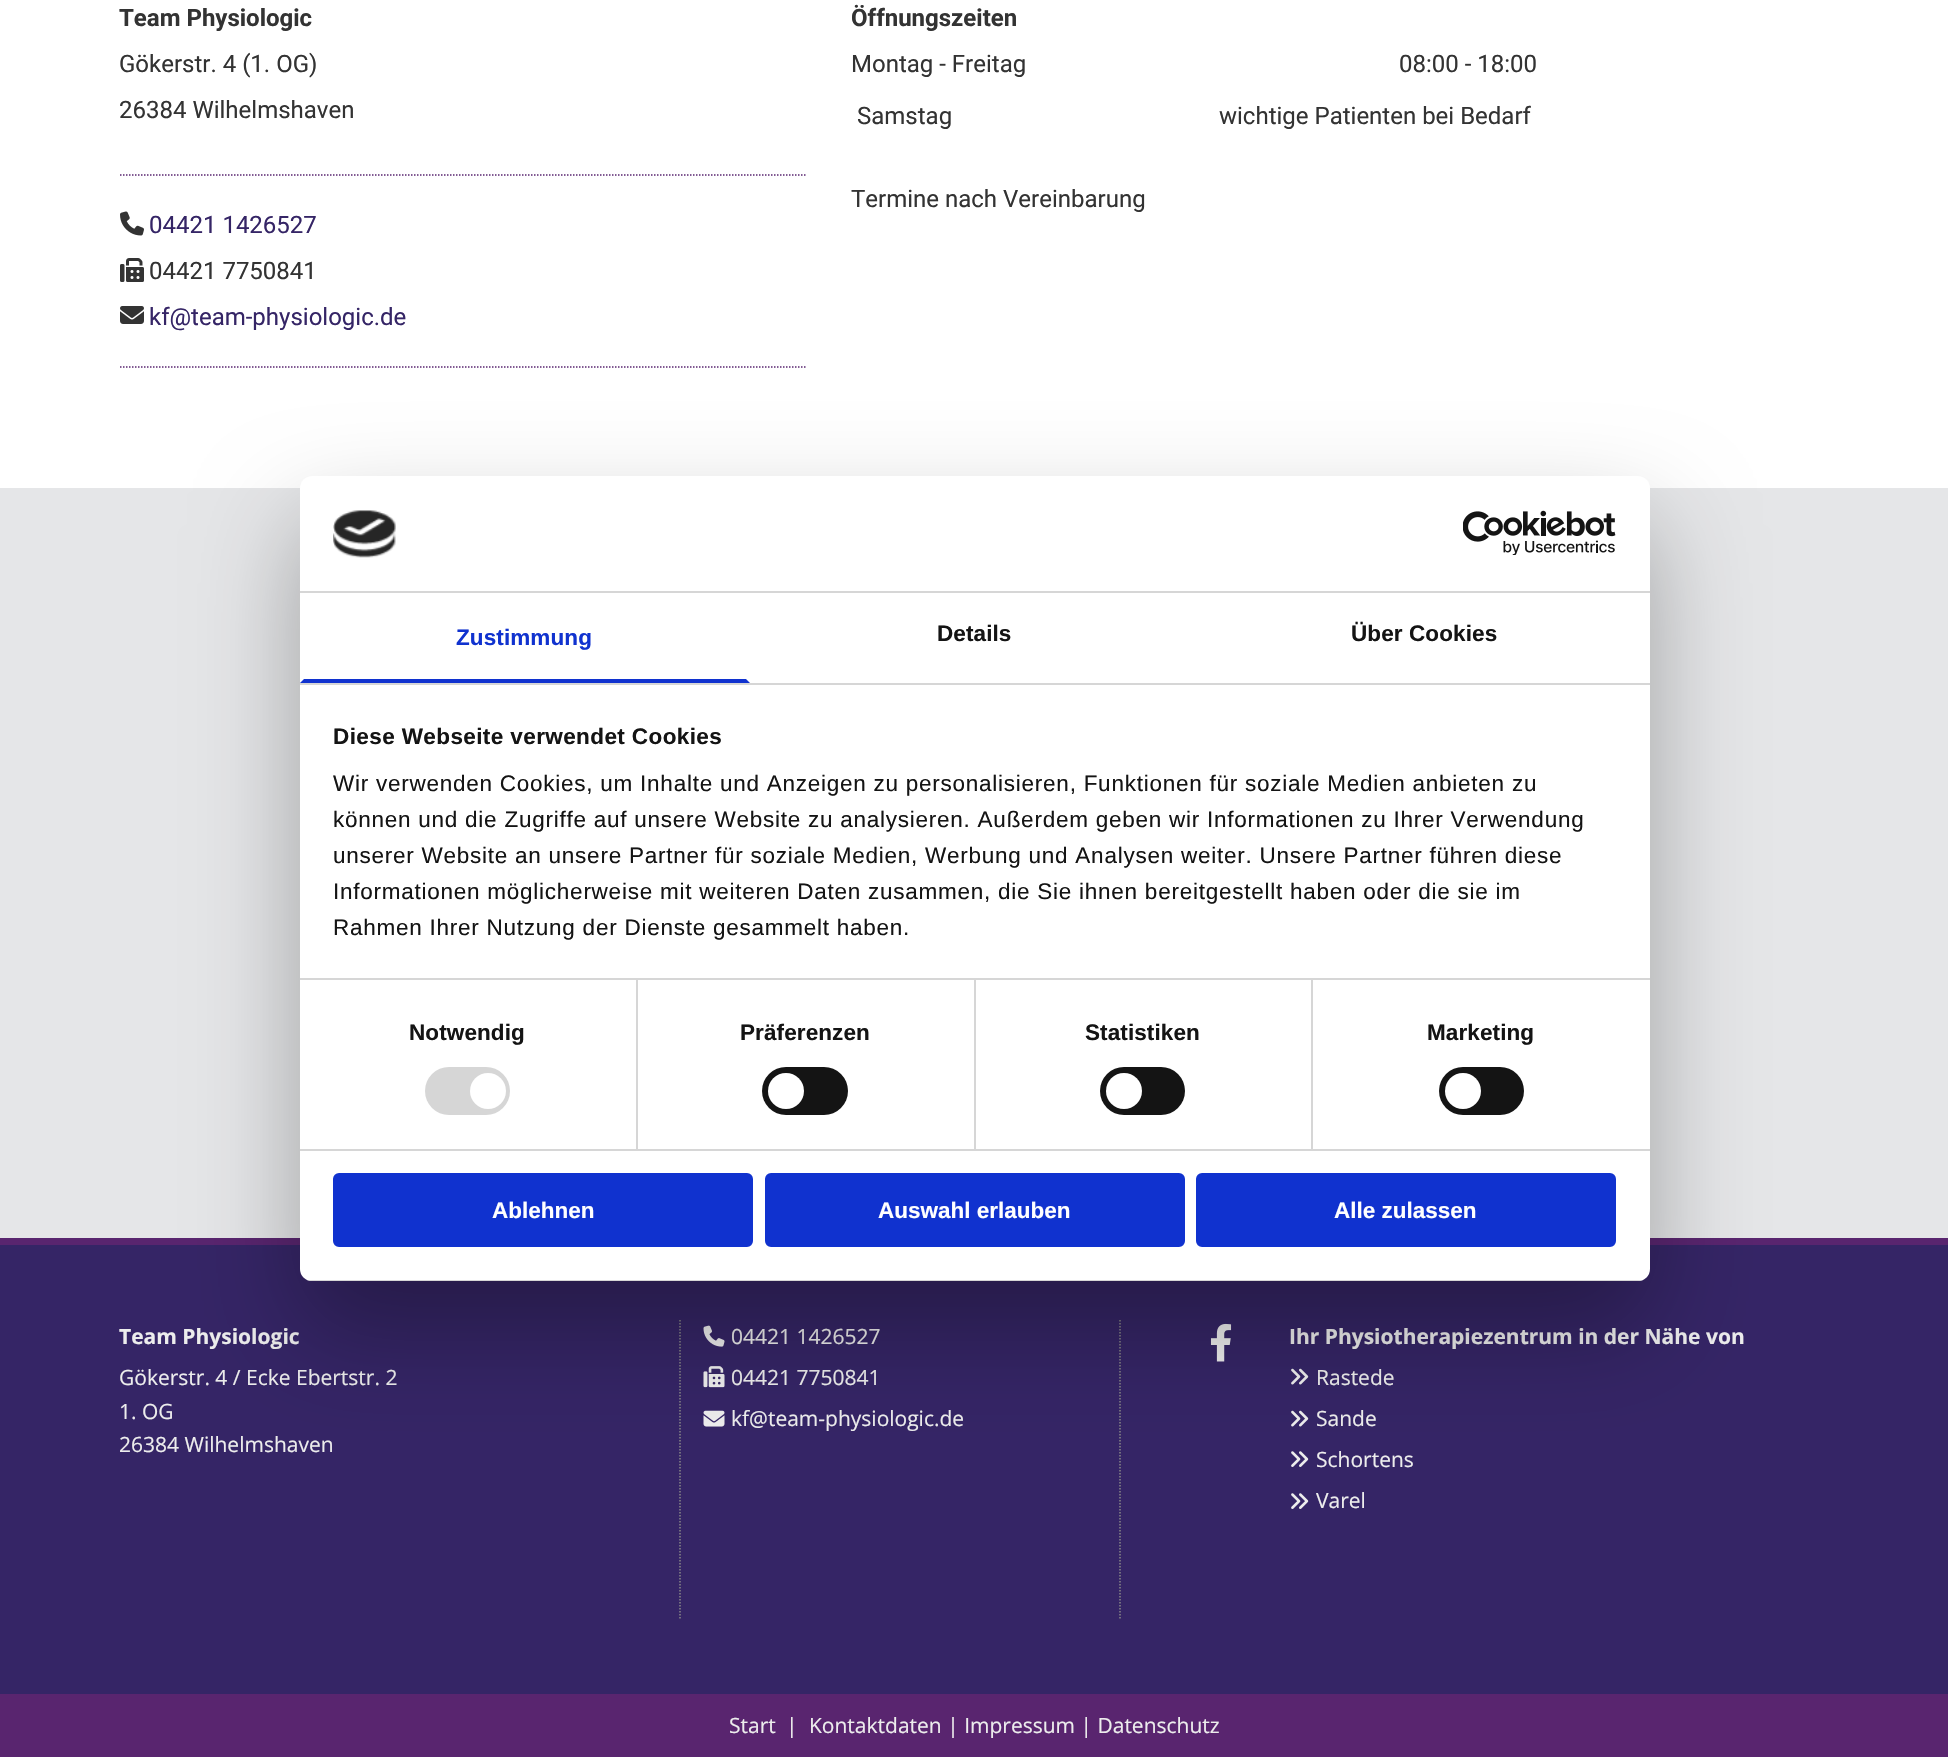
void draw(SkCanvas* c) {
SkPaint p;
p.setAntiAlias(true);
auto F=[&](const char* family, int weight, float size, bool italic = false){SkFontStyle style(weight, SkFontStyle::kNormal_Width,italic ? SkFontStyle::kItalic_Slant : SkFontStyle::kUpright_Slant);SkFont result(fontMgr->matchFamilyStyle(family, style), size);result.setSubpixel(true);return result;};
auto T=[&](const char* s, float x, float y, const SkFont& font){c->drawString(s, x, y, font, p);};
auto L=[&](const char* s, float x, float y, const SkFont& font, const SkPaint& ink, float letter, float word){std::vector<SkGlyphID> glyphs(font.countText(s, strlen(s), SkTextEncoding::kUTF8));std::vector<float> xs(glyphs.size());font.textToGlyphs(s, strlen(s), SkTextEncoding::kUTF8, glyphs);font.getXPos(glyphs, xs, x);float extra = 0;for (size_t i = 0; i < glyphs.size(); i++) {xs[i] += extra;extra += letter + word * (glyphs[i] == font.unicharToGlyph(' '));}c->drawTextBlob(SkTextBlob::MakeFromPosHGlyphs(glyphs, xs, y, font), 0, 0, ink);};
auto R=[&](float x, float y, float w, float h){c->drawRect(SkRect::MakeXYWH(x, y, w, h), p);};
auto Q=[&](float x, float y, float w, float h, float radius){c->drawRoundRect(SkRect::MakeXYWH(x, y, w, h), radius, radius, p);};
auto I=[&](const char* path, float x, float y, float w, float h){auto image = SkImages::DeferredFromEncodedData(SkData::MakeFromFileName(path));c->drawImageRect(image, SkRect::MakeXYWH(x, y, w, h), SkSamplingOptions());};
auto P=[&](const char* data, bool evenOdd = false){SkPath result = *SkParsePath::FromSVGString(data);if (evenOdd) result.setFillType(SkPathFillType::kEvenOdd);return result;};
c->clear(0xffffffff);
auto f1 = F("Roboto",700,24);
p.setColor(0xff333333);
T("Team Physiologic",119,26,f1);
auto f2 = F("Roboto",400,24);
T("Gökerstr. 4 (1. OG)",119,72,f2);
T("26384 Wilhelmshaven",119,118,f2);
p.setStroke(true);
p.setStrokeWidth(1.5);
p.setColor(0xff59256f);
p.setPathEffect(SkDashPathEffect::Make({{1.5f,1.5f}}, 0));
c->drawPath(P("M120 175h685.5"),p);
p.setPathEffect(nullptr);
I("1.png",120,211,24,25);
p.setStroke(false);
p.setColor(0xff352566);
T("04421 1426527",149,233,f2);
I("2.png",120,258,24,24);
p.setColor(0xff333333);
T("04421 7750841",149,279,f2);
I("3.png",120,306,24,18);
p.setColor(0xff352566);
T("kf@team-physiologic.de",149,325,f2);
p.setStroke(true);
p.setColor(0xff59256f);
p.setPathEffect(SkDashPathEffect::Make({{1.5f,1.5f}}, 0));
c->drawPath(P("M120 367h685.5"),p);
p.setPathEffect(nullptr);
p.setStroke(false);
p.setColor(0xff333333);
T("Öffnungszeiten",851,26,f1);
T("Montag - Freitag",851,72,f2);
T("08:00 - 18:00",1399,72,f2);
T("Samstag",857,124,f2);
T("wichtige Patienten bei Bedarf",1219,124,f2);
T("Termine nach Vereinbarung",851,207,f2);
p.setColor(0xffe5e6e8);
R(0,488,1948,750);
p.setColor(0xff352566);
R(0,1245,1948,449);
p.setColor(0xff59256f);
R(0,1238,1948,7);
p.setStroke(true);
p.setColor(0xff878787);
p.setPathEffect(SkDashPathEffect::Make({{1.5f,1.5f}}, 0));
c->drawPath(P("M680 1320v298.5"),p);
p.setPathEffect(nullptr);
auto f3 = F("Open Sans",700,21);
p.setStroke(false);
p.setColor(0xffededed);
T("Team Physiologic",119,1344,f3);
auto f4 = F("Open Sans",400,21);
T("Gökerstr. 4 / Ecke Ebertstr. 2",119,1385,f4);
T("1. OG",119,1419,f4);
T("26384 Wilhelmshaven",119,1452,f4);
p.setStroke(true);
p.setColor(0xff878787);
p.setPathEffect(SkDashPathEffect::Make({{1.5f,1.5f}}, 0));
c->drawPath(P("M1120 1320v298.5"),p);
p.setPathEffect(nullptr);
I("4.png",703,1325,22,22);
p.setStroke(false);
p.setColor(0xffededed);
T("04421 1426527",731,1344,f4);
I("5.png",703,1366,22,22);
T("04421 7750841",731,1385,f4);
I("6.png",703,1410,22,17);
T("kf@team-physiologic.de",731,1426,f4);
I("7.png",1210,1323,22,39);
T("Ihr Physiotherapiezentrum in der Nähe von",1289,1344,f3);
I("8.png",1291,1368,18,17);
T("Rastede",1316,1385,f4);
I("8.png",1291,1410,18,17);
T("Sande",1316,1426,f4);
I("9.png",1291,1451,18,16);
T("Schortens",1316,1467,f4);
I("9.png",1291,1493,18,16);
T("Varel",1316,1508,f4);
p.setColor(0xff59256f);
R(0,1694,1948,63);
p.setColor(0xffededed);
T("Start",729,1733,f4);
T("|",786,1733,f4);
T("Kontaktdaten | Impressum | Datenschutz",809,1733,f4);
p.setColor(0x4d000000);
p.setMaskFilter(SkMaskFilter::MakeBlur(kNormal_SkBlurStyle, 51));
c->drawRoundRect(SkRect::MakeXYWH(300,524,1350,805),12,12,p);
p.setMaskFilter(nullptr);
p.setColor(0xffffffff);
Q(300,476,1350,805,12);
p.setColor(0xffd6d6d6);
R(300,591,1350,2);
I("10.png",333,510,63,48);
I("11.png",1463,510,153,45);
R(300,683,1350,2);
p.setColor(0xff1032cf);
c->drawPath(P("M750 683h-450l4-4h442z"),p);
auto f5 = F("Liberation Sans",700,22.5);
L("Zustimmung",456,645,f5,p,.1,0);
p.setColor(0xff141414);
L("Details",937,641,f5,p,.1,0);
L("Über Cookies",1351,641,f5,p,.1,0);
p.setColor(0xffd6d6d6);
R(300,978,1350,2);
p.setColor(0xff141414);
L("Diese Webseite verwendet Cookies",333,744,f5,p,.4,0);
auto f6 = F("Liberation Sans",400,22.5);
L("Wir verwenden Cookies, um Inhalte und Anzeigen zu personalisieren, Funktionen für soziale Medien anbieten zu",333,791,f6,p,.75,0);
L("können und die Zugriffe auf unsere Website zu analysieren. Außerdem geben wir Informationen zu Ihrer Verwendung",333,827,f6,p,.75,0);
L("unserer Website an unsere Partner für soziale Medien, Werbung und Analysen weiter. Unsere Partner führen diese",333,863,f6,p,.75,0);
L("Informationen möglicherweise mit weiteren Daten zusammen, die Sie ihnen bereitgestellt haben oder die sie im",333,899,f6,p,.75,0);
L("Rahmen Ihrer Nutzung der Dienste gesammelt haben.",333,935,f6,p,.75,0);
p.setColor(0xffd6d6d6);
R(300,1149,1350,2);
R(636,980,2,169);
p.setColor(0xff141414);
L("Notwendig",409,1040,f5,p,.1,0);
p.setColor(0xffd6d6d6);
Q(425,1067,85,48,24);
p.setColor(0xffffffff);
c->drawCircle(488,1091,18,p);
p.setColor(0xffd6d6d6);
R(974,980,2,169);
p.setColor(0xff141414);
L("Präferenzen",740,1040,f5,p,.1,0);
Q(762,1067,86,48,24);
p.setColor(0xffffffff);
c->drawCircle(786,1091,18,p);
p.setColor(0xffd6d6d6);
R(1311,980,2,169);
p.setColor(0xff141414);
L("Statistiken",1085,1040,f5,p,.1,0);
Q(1100,1067,85,48,24);
p.setColor(0xffffffff);
c->drawCircle(1124,1091,18,p);
p.setColor(0xff141414);
L("Marketing",1427,1040,f5,p,.1,0);
Q(1439,1067,85,48,24);
p.setColor(0xffffffff);
c->drawCircle(1463,1091,18,p);
c->save();
c->clipPath(P("M312 476h1326c6.5 0 12 5.5 12 12v781c0 6.5-5.5 12-12 12h-1326c-6.5 0-12-5.5-12-12v-781c0-6.5 5.5-12 12-12z"),true);
p.setColor(0xffd6d6d6);
R(300,1280,1350,1);
c->restore();
p.setColor(0xff1032cf);
c->drawRoundRect(SkRect::MakeXYWH(334.5,1174.5,417,71),4.5,4.5,p);
p.setStroke(true);
p.setStrokeWidth(3);
c->drawRoundRect(SkRect::MakeXYWH(334.5,1174.5,417,71),4.5,4.5,p);
p.setStroke(false);
p.setColor(0xffffffff);
T("Ablehnen",492,1218,f5);
p.setColor(0xff1032cf);
c->drawRoundRect(SkRect::MakeXYWH(766.5,1174.5,417,71),4.5,4.5,p);
p.setStroke(true);
c->drawRoundRect(SkRect::MakeXYWH(766.5,1174.5,417,71),4.5,4.5,p);
p.setStroke(false);
p.setColor(0xffffffff);
T("Auswahl erlauben",878,1218,f5);
p.setColor(0xff1032cf);
c->drawRoundRect(SkRect::MakeXYWH(1197.5,1174.5,417,71),4.5,4.5,p);
p.setStroke(true);
c->drawRoundRect(SkRect::MakeXYWH(1197.5,1174.5,417,71),4.5,4.5,p);
p.setStroke(false);
p.setColor(0xffffffff);
T("Alle zulassen",1334,1218,f5);
}
